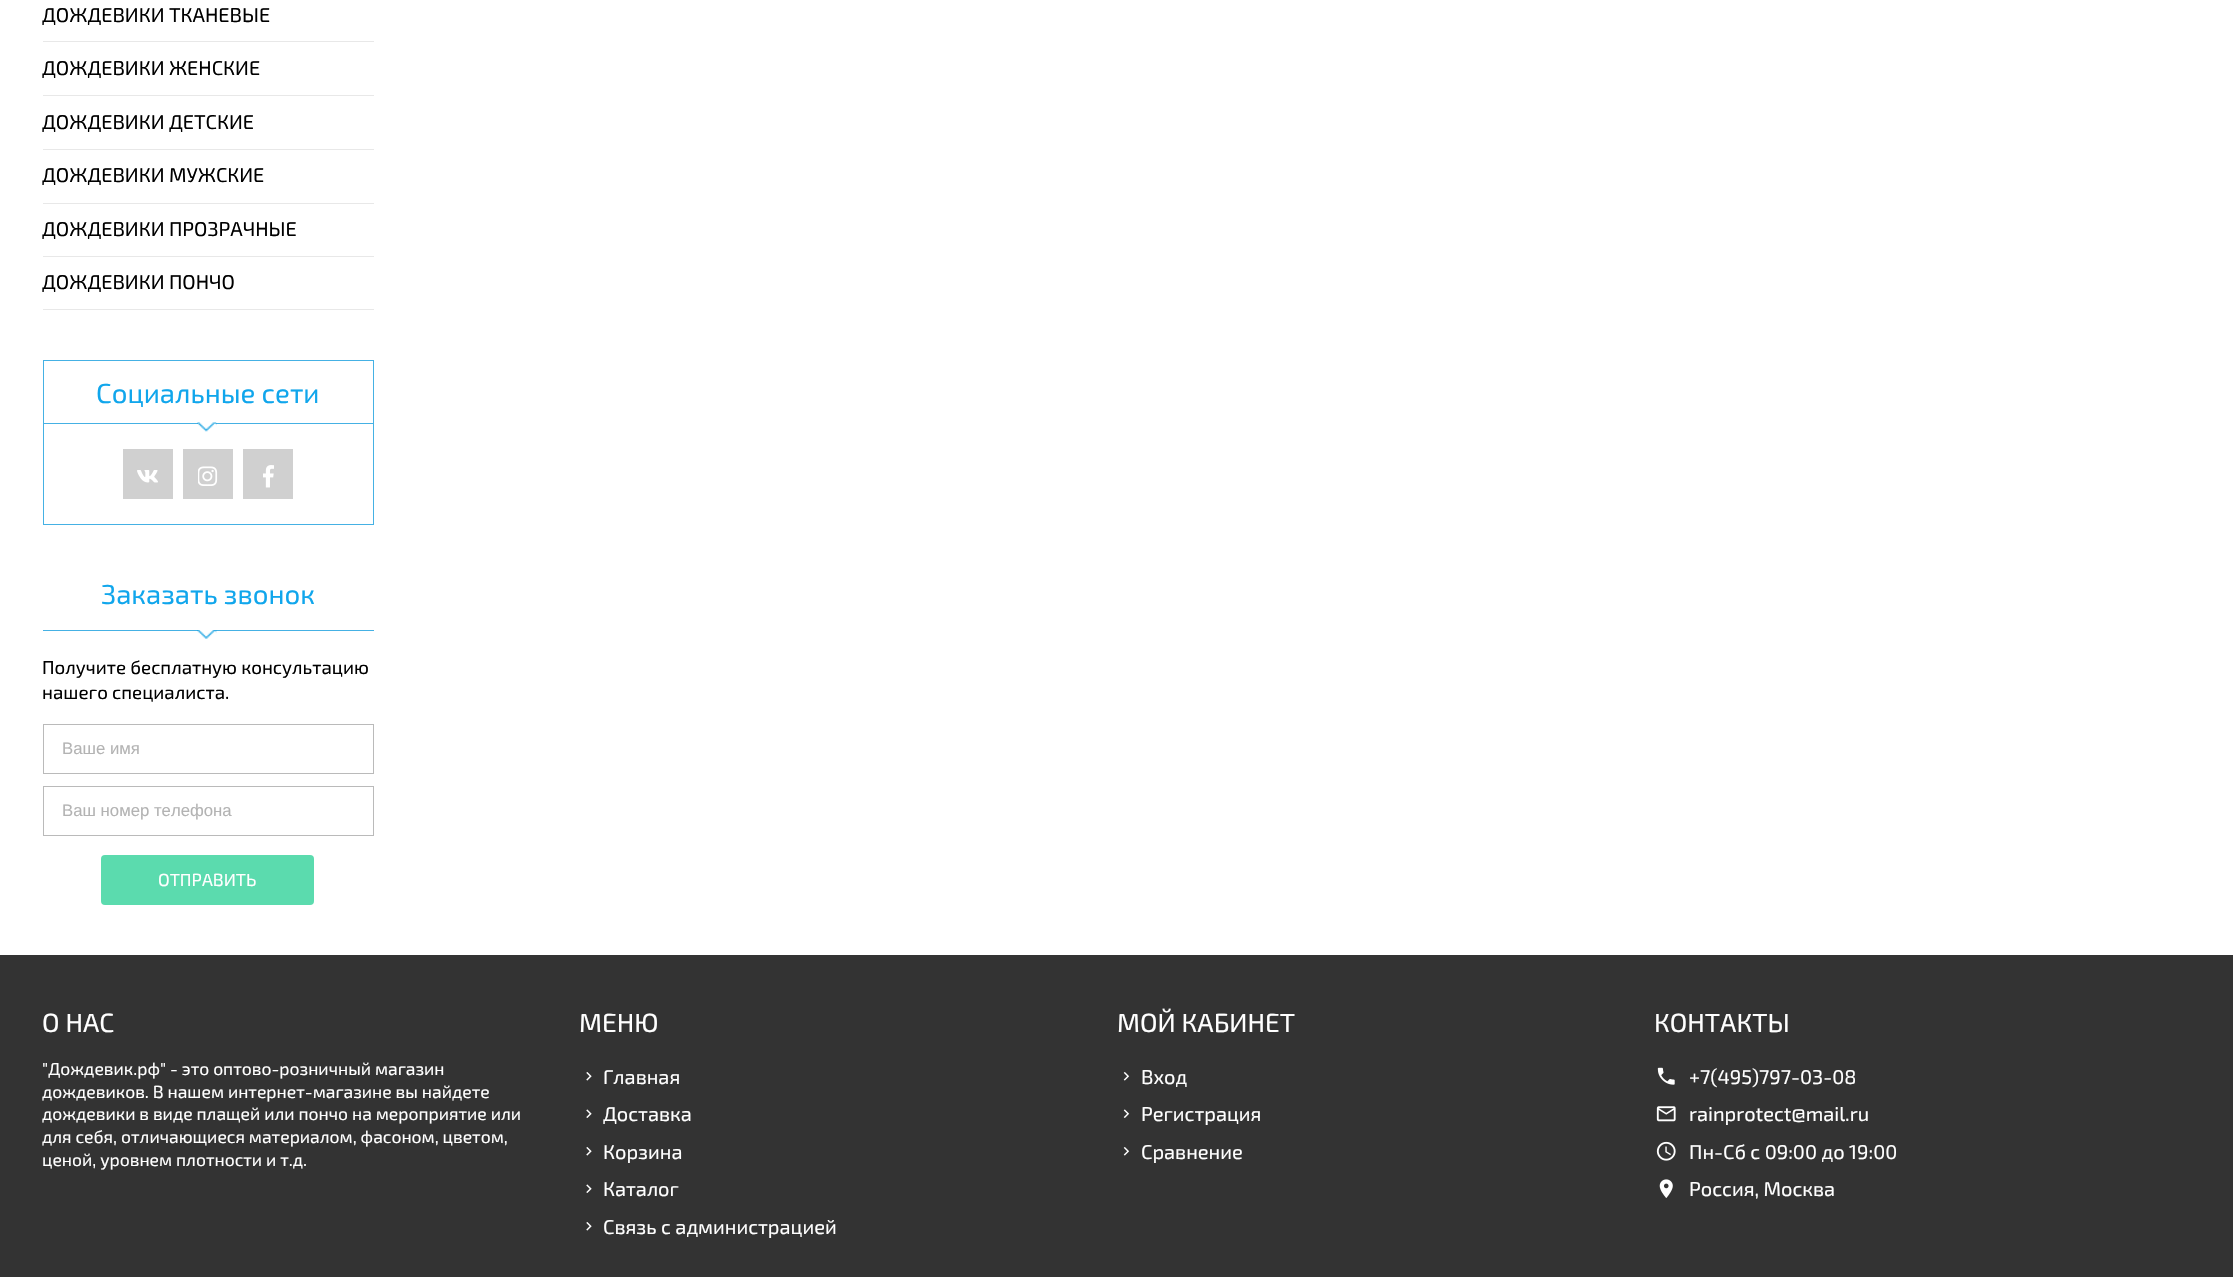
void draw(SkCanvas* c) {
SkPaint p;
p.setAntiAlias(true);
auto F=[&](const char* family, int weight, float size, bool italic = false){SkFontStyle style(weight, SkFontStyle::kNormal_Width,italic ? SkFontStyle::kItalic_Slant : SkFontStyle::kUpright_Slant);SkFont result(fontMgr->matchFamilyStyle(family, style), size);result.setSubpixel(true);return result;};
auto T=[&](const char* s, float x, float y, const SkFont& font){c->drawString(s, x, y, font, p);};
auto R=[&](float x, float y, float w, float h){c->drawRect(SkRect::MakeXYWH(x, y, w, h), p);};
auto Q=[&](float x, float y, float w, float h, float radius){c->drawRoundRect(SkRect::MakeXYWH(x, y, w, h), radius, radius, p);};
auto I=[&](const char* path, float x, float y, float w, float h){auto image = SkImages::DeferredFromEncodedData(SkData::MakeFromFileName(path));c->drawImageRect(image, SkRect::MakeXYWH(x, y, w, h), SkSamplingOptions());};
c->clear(0xffffffff);
p.setColor(0xffe8e8e8);
R(43,41,331,1);
auto f1 = F("Exo 2",400,20);
p.setColor(0xff000000);
T("ДОЖДЕВИКИ ТКАНЕВЫЕ",42,22,f1);
p.setColor(0xffe8e8e8);
R(43,95,331,1);
p.setColor(0xff000000);
T("ДОЖДЕВИКИ ЖЕНСКИЕ",42,75,f1);
p.setColor(0xffe8e8e8);
R(43,149,331,1);
p.setColor(0xff000000);
T("ДОЖДЕВИКИ ДЕТСКИЕ",42,129,f1);
p.setColor(0xffe8e8e8);
R(43,203,331,1);
p.setColor(0xff000000);
T("ДОЖДЕВИКИ МУЖСКИЕ",42,182,f1);
p.setColor(0xffe8e8e8);
R(43,256,331,1);
p.setColor(0xff000000);
T("ДОЖДЕВИКИ ПРОЗРАЧНЫЕ",42,236,f1);
p.setColor(0xffe8e8e8);
R(43,309,331,1);
p.setColor(0xff000000);
T("ДОЖДЕВИКИ ПОНЧО",42,289,f1);
p.setStroke(true);
p.setStrokeWidth(1);
p.setColor(0xff45b1e4);
c->drawRect(SkRect::MakeXYWH(43.5,360.5,330,164),p);
p.setStroke(false);
R(44,423,329,1);
auto f2 = F("Exo 2",400,27.5);
p.setColor(0xff10a6ec);
T("Социальные сети",96,403,f2);
p.setColor(0xffffffff);
R(198,423,18,1);
I("1.png",197,422,20,10);
p.setColor(0xffd0d0d0);
R(123,449,50,50);
I("2.png",137,470,21,13);
R(183,449,50,50);
I("3.png",198,466,20,20);
R(243,449,50,50);
I("4.png",263,465,11,23);
p.setColor(0xff45b1e4);
R(43,630,331,1);
p.setColor(0xff10a6ec);
T("Заказать звонок",101,604,f2);
p.setColor(0xffffffff);
R(198,630,18,1);
I("5.png",197,630,20,9);
auto f3 = F("Exo 2",400,18.75);
p.setColor(0xff000000);
T("Получите бесплатную консультацию",42,674,f3);
T("нашего специалиста.",42,699,f3);
p.setStroke(true);
p.setColor(0xffbababa);
c->drawRect(SkRect::MakeXYWH(43.5,724.5,330,49),p);
auto f4 = F("Liberation Sans",400,16.75);
p.setStroke(false);
p.setColor(0xffb3b3b3);
T("Ваше имя",62,754,f4);
p.setStroke(true);
p.setColor(0xffbababa);
c->drawRect(SkRect::MakeXYWH(43.5,786.5,330,49),p);
p.setStroke(false);
p.setColor(0xffb3b3b3);
T("Ваш номер телефона",62,816,f4);
p.setColor(0xff5bdbae);
Q(101,855,213,50,4);
auto f5 = F("Exo 2",400,17.5);
p.setColor(0xffffffff);
T("ОТПРАВИТЬ",158,886,f5);
p.setColor(0xff333333);
R(0,955,2233,322);
auto f6 = F("Exo 2",400,26.25);
p.setColor(0xffffffff);
T("О НАС",42,1032,f6);
T("\"Дождевик.рф\" - это оптово-розничный магазин",42,1075,f5);
T("дождевиков. В нашем интернет-магазине вы найдете",42,1098,f5);
T("дождевики в виде плащей или пончо на мероприятие или",42,1120,f5);
T("для себя, отличающиеся материалом, фасоном, цветом,",42,1143,f5);
T("ценой, уровнем плотности и т.д.",42,1166,f5);
T("МЕНЮ",579,1032,f6);
I("6.png",586,1072,6,9);
T("Главная",603,1084,f1);
I("7.png",586,1109,6,9);
T("Доставка",603,1121,f1);
I("6.png",586,1147,6,9);
T("Корзина",603,1159,f1);
I("7.png",586,1184,6,9);
T("Каталог",603,1196,f1);
I("6.png",586,1222,6,9);
T("Связь с администрацией",603,1234,f1);
T("МОЙ КАБИНЕТ",1117,1032,f6);
I("8.png",1123,1072,7,9);
T("Вход",1141,1084,f1);
I("9.png",1123,1109,7,9);
T("Регистрация",1141,1121,f1);
I("8.png",1123,1147,7,9);
T("Сравнение",1141,1159,f1);
T("КОНТАКТЫ",1654,1032,f6);
I("10.png",1657,1067,18,18);
T("+7(495)797-03-08",1689,1084,f1);
I("11.png",1656,1106,20,16);
T("rainprotect@mail.ru",1689,1121,f1);
I("12.png",1656,1141,20,20);
T("Пн-Сб с 09:00 до 19:00",1689,1159,f1);
I("13.png",1659,1179,14,19);
T("Россия, Москва",1689,1196,f1);
}
